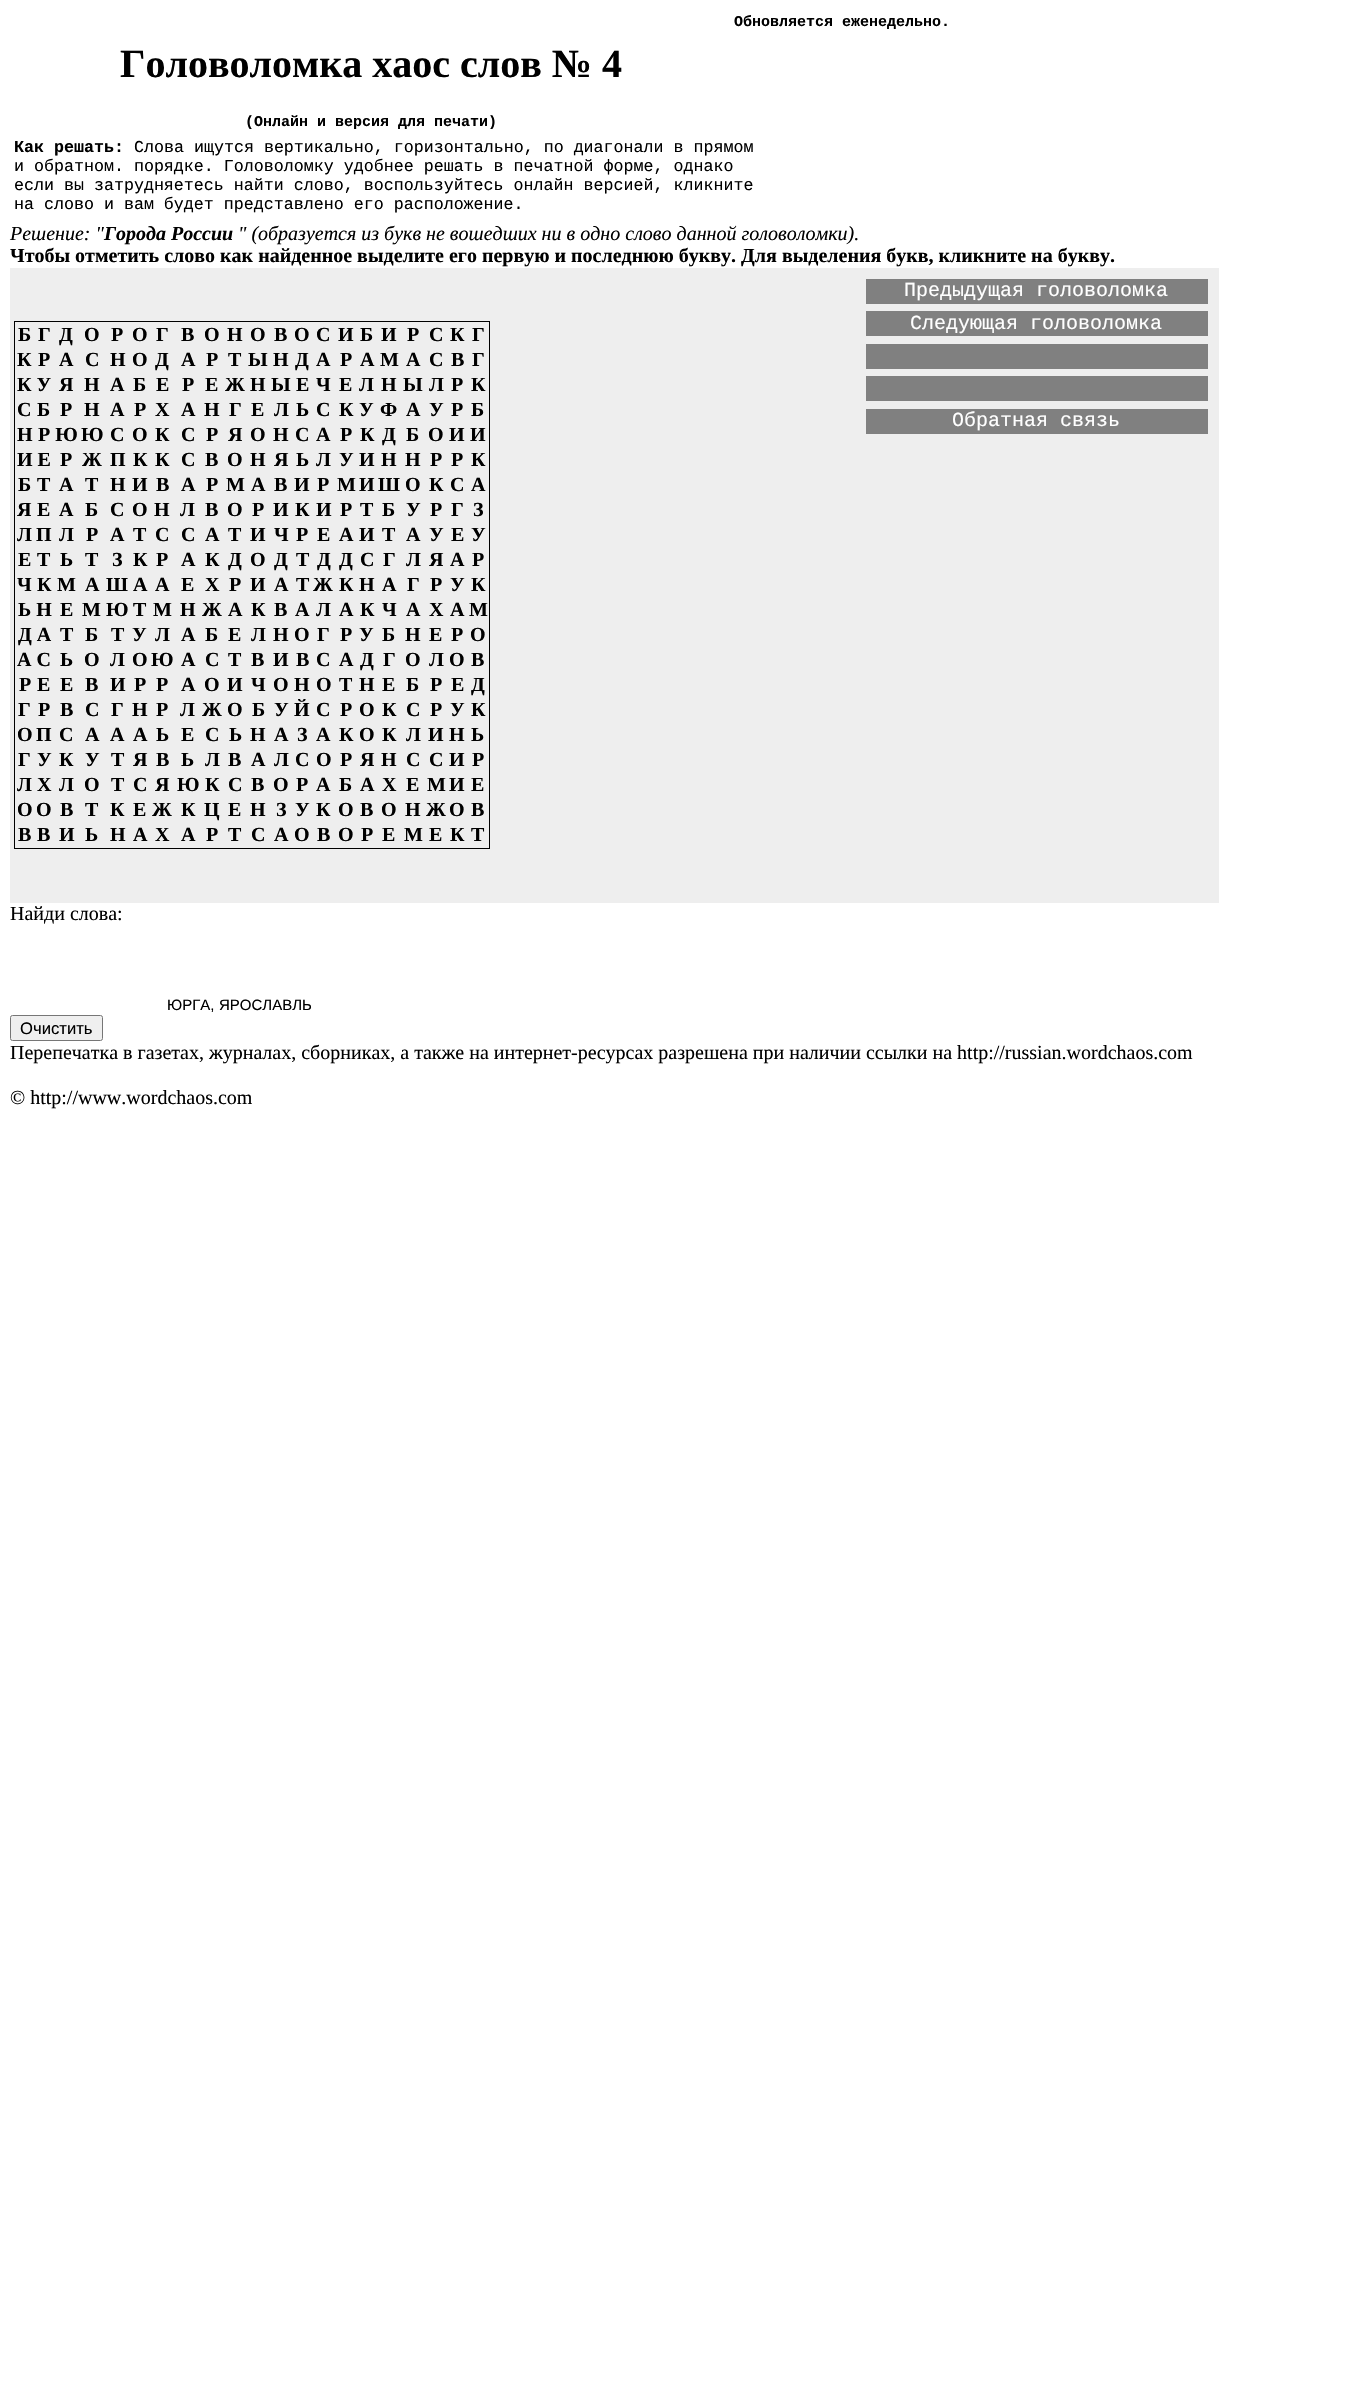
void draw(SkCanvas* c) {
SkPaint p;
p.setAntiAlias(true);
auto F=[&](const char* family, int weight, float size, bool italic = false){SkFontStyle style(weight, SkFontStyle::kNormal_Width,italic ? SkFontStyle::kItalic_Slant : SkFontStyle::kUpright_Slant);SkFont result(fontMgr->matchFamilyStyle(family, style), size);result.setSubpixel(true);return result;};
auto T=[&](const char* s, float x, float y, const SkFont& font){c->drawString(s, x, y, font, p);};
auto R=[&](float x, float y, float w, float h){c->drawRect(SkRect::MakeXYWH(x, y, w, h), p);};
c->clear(0xffffffff);
auto f1 = F("Liberation Mono",700,15);
p.setColor(0xff000000);
T("Обновляется еженедельно.",734,26,f1);
auto f2 = F("Liberation Serif",700,40);
T("Головоломка хаос слов № 4",120,77,f2);
T("(Онлайн и версия для печати)",245,126,f1);
auto f3 = F("Liberation Mono",700,16.65);
T("Как решать:",14,152,f3);
auto f4 = F("Liberation Mono",400,16.65);
T("Слова ищутся вертикально, горизонтально, по диагонали в прямом",134,152,f4);
T("и обратном. порядке. Головоломку удобнее решать в печатной форме, однако",14,171,f4);
T("если вы затрудняетесь найти слово, воспользуйтесь онлайн версией, кликните",14,190,f4);
T("на слово и вам будет представлено его расположение.",14,209,f4);
auto f5 = F("Liberation Serif",400,20,true);
T("Решение: \"",10,240,f5);
auto f6 = F("Liberation Serif",700,20,true);
T("Города России",104,240,f6);
T("\" (образуется из букв не вошедших ни в одно слово данной головоломки).",238,240,f5);
auto f7 = F("Liberation Serif",700,20);
T("Чтобы отметить слово как найденное выделите его первую и последнюю букву. Для выделения букв, кликните на букву.",10,262,f7);
p.setColor(0xffeeeeee);
R(10,268,1209,635);
p.setColor(0xff000000);
R(14,321,476,1);
R(14,321,1,502);
T("Б",18,341,f7);
T("Г",38,341,f7);
T("Д",59,341,f7);
T("О",84,341,f7);
T("Р",111,341,f7);
T("О",132,341,f7);
T("Г",156,341,f7);
T("В",181,341,f7);
T("О",204,341,f7);
T("Н",227,341,f7);
T("О",250,341,f7);
T("В",274,341,f7);
T("О",294,341,f7);
T("С",316,341,f7);
T("И",338,341,f7);
T("Б",360,341,f7);
T("И",381,341,f7);
T("Р",407,341,f7);
T("С",429,341,f7);
T("К",450,341,f7);
R(489,321,1,528);
T("Г",472,341,f7);
T("К",17,366,f7);
T("Р",38,366,f7);
T("А",59,366,f7);
T("С",85,366,f7);
T("Н",110,366,f7);
T("О",132,366,f7);
T("Д",155,366,f7);
T("А",181,366,f7);
T("Р",206,366,f7);
T("Т",228,366,f7);
T("Ы",248,366,f7);
T("Н",273,366,f7);
T("Д",295,366,f7);
T("А",316,366,f7);
T("Р",340,366,f7);
T("А",360,366,f7);
T("М",380,366,f7);
T("А",406,366,f7);
T("С",429,366,f7);
T("В",451,366,f7);
T("Г",472,366,f7);
T("К У",17,391,f7);
T("Я",59,391,f7);
T("Н",84,391,f7);
T("А",110,391,f7);
T("Б",133,391,f7);
T("Е",156,391,f7);
T("Р",182,391,f7);
T("Е",205,391,f7);
T("Ж",225,391,f7);
T("Н",250,391,f7);
T("Ы",271,391,f7);
T("Е",296,391,f7);
T("Ч",316,391,f7);
T("Е",339,391,f7);
T("Л",359,391,f7);
T("Н",381,391,f7);
T("Ы",403,391,f7);
T("Л",429,391,f7);
T("Р",451,391,f7);
T("К",471,391,f7);
T("С",17,416,f7);
T("Б",37,416,f7);
T("Р",60,416,f7);
T("Н",84,416,f7);
T("А",110,416,f7);
T("Р",134,416,f7);
T("Х",155,416,f7);
T("А",181,416,f7);
T("Н",204,416,f7);
T("Г",229,416,f7);
T("Е",251,416,f7);
T("Л",274,416,f7);
T("Ь",296,416,f7);
T("С",316,416,f7);
T("К",339,416,f7);
T("У",359,416,f7);
T("Ф",380,416,f7);
T("А",406,416,f7);
T("У",429,416,f7);
T("Р",451,416,f7);
T("Б",471,416,f7);
T("Н",17,441,f7);
T("Р Ю",38,441,f7);
T("Ю",81,441,f7);
T("С",110,441,f7);
T("О",132,441,f7);
T("К",155,441,f7);
T("С",181,441,f7);
T("Р",206,441,f7);
T("Я",228,441,f7);
T("О",250,441,f7);
T("Н",273,441,f7);
T("С",295,441,f7);
T("А",316,441,f7);
T("Р",340,441,f7);
T("К",360,441,f7);
T("Д",382,441,f7);
T("Б",406,441,f7);
T("О",428,441,f7);
T("И",449,441,f7);
T("И",470,441,f7);
T("И Е",17,466,f7);
T("Р",60,466,f7);
T("Ж",82,466,f7);
T("П",110,466,f7);
T("К",133,466,f7);
T("К",155,466,f7);
T("С",181,466,f7);
T("В",205,466,f7);
T("О",227,466,f7);
T("Н",250,466,f7);
T("Я",274,466,f7);
T("Ь",296,466,f7);
T("Л",316,466,f7);
T("У",339,466,f7);
T("И",359,466,f7);
T("Н",381,466,f7);
T("Н",405,466,f7);
T("Р",430,466,f7);
T("Р",451,466,f7);
T("К",471,466,f7);
T("Б",18,491,f7);
T("Т",37,491,f7);
T("А",59,491,f7);
T("Т",85,491,f7);
T("Н",110,491,f7);
T("И",132,491,f7);
T("В",156,491,f7);
T("А",181,491,f7);
T("Р",206,491,f7);
T("М",226,491,f7);
T("А",251,491,f7);
T("В",274,491,f7);
T("И",294,491,f7);
T("Р",317,491,f7);
T("М",337,491,f7);
T("И",359,491,f7);
T("Ш О",378,491,f7);
T("К",429,491,f7);
T("С",450,491,f7);
T("А",471,491,f7);
T("Я",17,516,f7);
T("Е",37,516,f7);
T("А",59,516,f7);
T("Б",85,516,f7);
T("С",110,516,f7);
T("О",132,516,f7);
T("Н",154,516,f7);
T("Л",180,516,f7);
T("В",205,516,f7);
T("О",227,516,f7);
T("Р",252,516,f7);
T("И",273,516,f7);
T("К",295,516,f7);
T("И",316,516,f7);
T("Р",340,516,f7);
T("Т",360,516,f7);
T("Б",382,516,f7);
T("У",406,516,f7);
T("Р",430,516,f7);
T("Г",451,516,f7);
T("З",473,516,f7);
T("Л",17,541,f7);
T("П",36,541,f7);
T("Л",59,541,f7);
T("Р",86,541,f7);
T("А",110,541,f7);
T("Т",133,541,f7);
T("С",155,541,f7);
T("С",181,541,f7);
T("А",205,541,f7);
T("Т",228,541,f7);
T("И",250,541,f7);
T("Ч",274,541,f7);
T("Р",296,541,f7);
T("Е",317,541,f7);
T("А",339,541,f7);
T("И",359,541,f7);
T("Т",382,541,f7);
T("А",406,541,f7);
T("У",429,541,f7);
T("Е",451,541,f7);
T("У",471,541,f7);
T("Е",18,566,f7);
T("Т",37,566,f7);
T("Ь",60,566,f7);
T("Т",85,566,f7);
T("З",112,566,f7);
T("К",133,566,f7);
T("Р",156,566,f7);
T("А",181,566,f7);
T("К",205,566,f7);
T("Д",228,566,f7);
T("О",250,566,f7);
T("Д",274,566,f7);
T("Т",296,566,f7);
T("Д",317,566,f7);
T("Д",339,566,f7);
T("С",360,566,f7);
T("Г",383,566,f7);
T("Л",406,566,f7);
T("Я",429,566,f7);
T("А",450,566,f7);
T("Р",472,566,f7);
T("Ч",17,591,f7);
T("К",37,591,f7);
T("М",57,591,f7);
T("А",85,591,f7);
T("Ш",106,591,f7);
T("А",133,591,f7);
T("А",155,591,f7);
T("Е",181,591,f7);
T("Х",205,591,f7);
T("Р",229,591,f7);
T("И",250,591,f7);
T("А",274,591,f7);
T("Т",296,591,f7);
T("Ж",313,591,f7);
T("К",339,591,f7);
T("Н",359,591,f7);
T("А",382,591,f7);
T("Г",407,591,f7);
T("Р",430,591,f7);
T("У",450,591,f7);
T("К",471,591,f7);
T("Ь Н",18,616,f7);
T("Е",60,616,f7);
T("М Ю",82,616,f7);
T("Т",133,616,f7);
T("М",153,616,f7);
T("Н",180,616,f7);
T("Ж",202,616,f7);
T("А",228,616,f7);
T("К",251,616,f7);
T("В",274,616,f7);
T("А",295,616,f7);
T("Л",316,616,f7);
T("А",339,616,f7);
T("К",360,616,f7);
T("Ч",382,616,f7);
T("А",406,616,f7);
T("Х",429,616,f7);
T("А",450,616,f7);
T("М",469,616,f7);
T("Д А",18,641,f7);
T("Т",60,641,f7);
T("Б",85,641,f7);
T("Т",111,641,f7);
T("У",132,641,f7);
T("Л",155,641,f7);
T("А",181,641,f7);
T("Б",205,641,f7);
T("Е",228,641,f7);
T("Л",251,641,f7);
T("Н",273,641,f7);
T("О",294,641,f7);
T("Г",317,641,f7);
T("Р",340,641,f7);
T("У",359,641,f7);
T("Б",382,641,f7);
T("Н",405,641,f7);
T("Е",429,641,f7);
T("Р",451,641,f7);
T("О",470,641,f7);
T("А С",17,666,f7);
T("Ь",60,666,f7);
T("О",84,666,f7);
T("Л",110,666,f7);
T("О",132,666,f7);
T("Ю",151,666,f7);
T("А",181,666,f7);
T("С",205,666,f7);
T("Т",228,666,f7);
T("В",251,666,f7);
T("И",273,666,f7);
T("В",296,666,f7);
T("С",316,666,f7);
T("А",339,666,f7);
T("Д",360,666,f7);
T("Г",383,666,f7);
T("О",405,666,f7);
T("Л",429,666,f7);
T("О",449,666,f7);
T("В",471,666,f7);
T("Р",19,691,f7);
T("Е",37,691,f7);
T("Е",60,691,f7);
T("В",85,691,f7);
T("И",110,691,f7);
T("Р",134,691,f7);
T("Р",156,691,f7);
T("А",181,691,f7);
T("О",204,691,f7);
T("И",227,691,f7);
T("Ч",251,691,f7);
T("О",273,691,f7);
T("Н",294,691,f7);
T("О",316,691,f7);
T("Т",339,691,f7);
T("Н",359,691,f7);
T("Е",382,691,f7);
T("Б",406,691,f7);
T("Р",430,691,f7);
T("Е",451,691,f7);
T("Д",471,691,f7);
T("Г",18,716,f7);
T("Р",38,716,f7);
T("В",60,716,f7);
T("С",85,716,f7);
T("Г",111,716,f7);
T("Н",132,716,f7);
T("Р",156,716,f7);
T("Л",180,716,f7);
T("Ж",202,716,f7);
T("О",227,716,f7);
T("Б",252,716,f7);
T("У",274,716,f7);
T("Й",294,716,f7);
T("С",316,716,f7);
T("Р",340,716,f7);
T("О",359,716,f7);
T("К",382,716,f7);
T("С",406,716,f7);
T("Р",430,716,f7);
T("У",450,716,f7);
T("К",471,716,f7);
T("О",17,741,f7);
T("П",36,741,f7);
T("С",59,741,f7);
T("А",85,741,f7);
T("А",110,741,f7);
T("А",133,741,f7);
T("Ь",156,741,f7);
T("Е",181,741,f7);
T("С",205,741,f7);
T("Ь",229,741,f7);
T("Н",250,741,f7);
T("А",274,741,f7);
T("З",297,741,f7);
T("А",316,741,f7);
T("К",339,741,f7);
T("О",359,741,f7);
T("К",382,741,f7);
T("Л",406,741,f7);
T("И",428,741,f7);
T("Н",449,741,f7);
T("Ь",471,741,f7);
T("Г",18,766,f7);
T("У",37,766,f7);
T("К",59,766,f7);
T("У",85,766,f7);
T("Т",111,766,f7);
T("Я",133,766,f7);
T("В",156,766,f7);
T("Ь",181,766,f7);
T("Л",205,766,f7);
T("В",228,766,f7);
T("А",251,766,f7);
T("Л",274,766,f7);
T("С",295,766,f7);
T("О",316,766,f7);
T("Р",340,766,f7);
T("Я",360,766,f7);
T("Н",381,766,f7);
T("С",406,766,f7);
T("С",429,766,f7);
T("И",449,766,f7);
T("Р",472,766,f7);
T("Л",17,791,f7);
T("Х",37,791,f7);
T("Л",59,791,f7);
T("О",84,791,f7);
T("Т",111,791,f7);
T("С",133,791,f7);
T("Я",155,791,f7);
T("Ю",177,791,f7);
T("К",205,791,f7);
T("С",228,791,f7);
T("В",251,791,f7);
T("О",273,791,f7);
T("Р",296,791,f7);
T("А",316,791,f7);
T("Б",339,791,f7);
T("А",360,791,f7);
T("Х",382,791,f7);
T("Е",406,791,f7);
T("М",427,791,f7);
T("И",449,791,f7);
T("Е",471,791,f7);
T("О",17,816,f7);
T("О",36,816,f7);
T("В",60,816,f7);
T("Т",85,816,f7);
T("К",110,816,f7);
T("Е",133,816,f7);
T("Ж",152,816,f7);
T("К",181,816,f7);
T("Ц",204,816,f7);
T("Е",228,816,f7);
T("Н",250,816,f7);
T("З",276,816,f7);
T("У",295,816,f7);
T("К",316,816,f7);
T("О",338,816,f7);
T("В",360,816,f7);
T("О",381,816,f7);
T("Н",405,816,f7);
T("Ж",426,816,f7);
T("О",449,816,f7);
T("В",471,816,f7);
R(14,848,476,1);
R(14,823,1,26);
T("В",18,841,f7);
T("В",37,841,f7);
T("И",59,841,f7);
T("Ь",85,841,f7);
T("Н",110,841,f7);
T("А",133,841,f7);
T("Х",155,841,f7);
T("А",181,841,f7);
T("Р",206,841,f7);
T("Т",228,841,f7);
T("С",251,841,f7);
T("А",274,841,f7);
T("О",294,841,f7);
T("В",317,841,f7);
T("О",338,841,f7);
T("Р",361,841,f7);
T("Е",382,841,f7);
T("М",404,841,f7);
T("Е",429,841,f7);
T("К",450,841,f7);
T("Т",471,841,f7);
p.setColor(0xff808080);
R(866,279,342,25);
auto f8 = F("Liberation Mono",400,20);
p.setColor(0xffffffff);
T("Предыдущая головоломка",904,296,f8);
p.setColor(0xff808080);
R(866,311,342,25);
p.setColor(0xffffffff);
T("Следующая головоломка",910,329,f8);
p.setColor(0xff808080);
R(866,344,342,25);
R(866,376,342,25);
R(866,409,342,25);
p.setColor(0xffffffff);
T("Обратная связь",952,426,f8);
auto f9 = F("Liberation Serif",400,20);
p.setColor(0xff000000);
T("Найди слова:",10,920,f9);
auto f10 = F("Liberation Sans",400,15);
T("ЮРГА,",167,1010,f10);
T("ЯРОСЛАВЛЬ",219,1010,f10);
p.setColor(0xffefefef);
c->drawRoundRect(SkRect::MakeXYWH(10.5,1015.5,92,25),2,2,p);
p.setStroke(true);
p.setStrokeWidth(1);
p.setColor(0xff767676);
c->drawRoundRect(SkRect::MakeXYWH(10.5,1015.5,92,25),2,2,p);
auto f11 = F("Liberation Sans",400,16.65);
p.setStroke(false);
p.setColor(0xff000000);
T("Очистить",20,1034,f11);
T("Перепечатка в газетах, журналах, сборниках, а также на интернет-ресурсах разрешена при наличии ссылки на http://russian.wordchaos.com",10,1059,f9);
T("© http://www.wordchaos.com",10,1104,f9);
}
